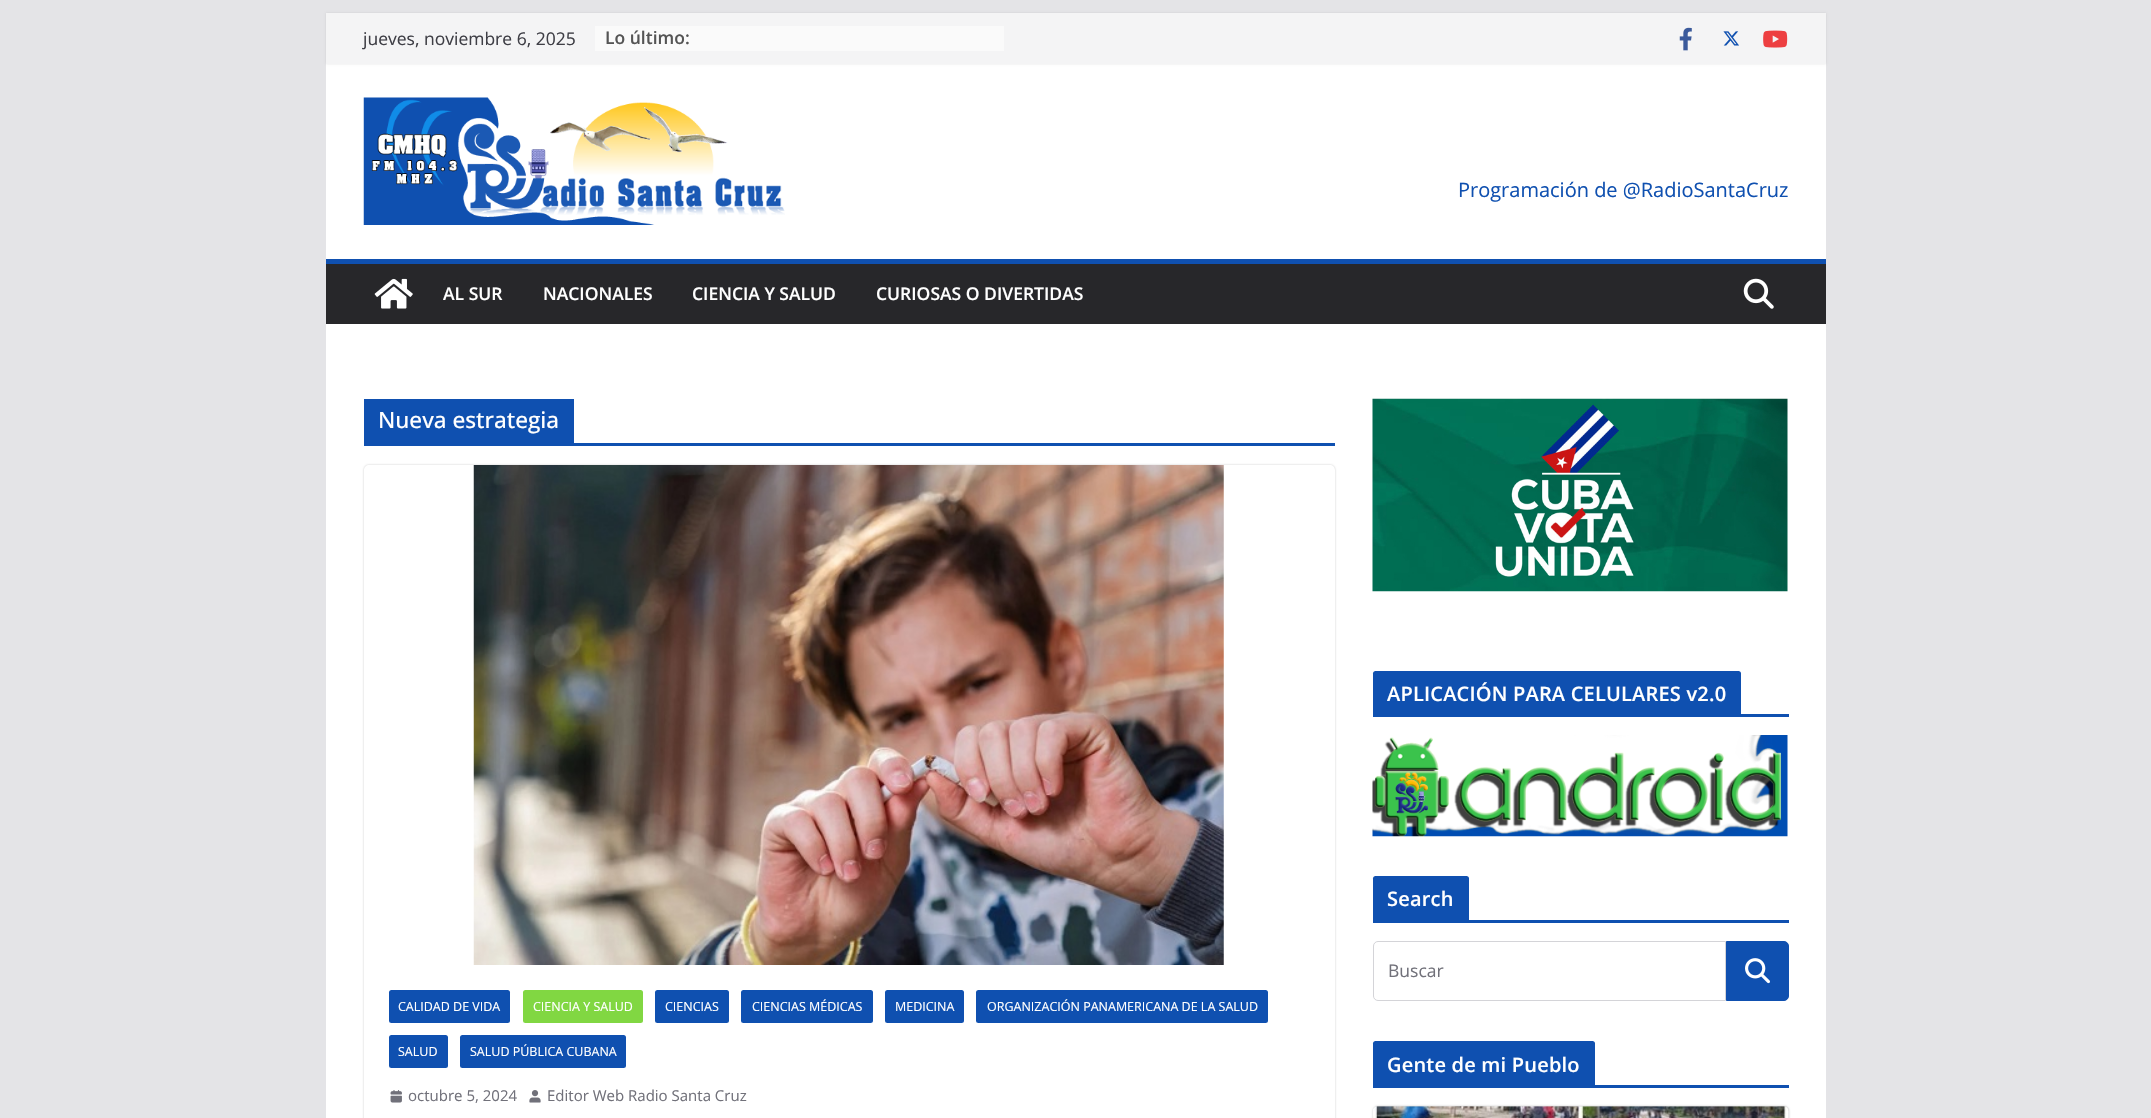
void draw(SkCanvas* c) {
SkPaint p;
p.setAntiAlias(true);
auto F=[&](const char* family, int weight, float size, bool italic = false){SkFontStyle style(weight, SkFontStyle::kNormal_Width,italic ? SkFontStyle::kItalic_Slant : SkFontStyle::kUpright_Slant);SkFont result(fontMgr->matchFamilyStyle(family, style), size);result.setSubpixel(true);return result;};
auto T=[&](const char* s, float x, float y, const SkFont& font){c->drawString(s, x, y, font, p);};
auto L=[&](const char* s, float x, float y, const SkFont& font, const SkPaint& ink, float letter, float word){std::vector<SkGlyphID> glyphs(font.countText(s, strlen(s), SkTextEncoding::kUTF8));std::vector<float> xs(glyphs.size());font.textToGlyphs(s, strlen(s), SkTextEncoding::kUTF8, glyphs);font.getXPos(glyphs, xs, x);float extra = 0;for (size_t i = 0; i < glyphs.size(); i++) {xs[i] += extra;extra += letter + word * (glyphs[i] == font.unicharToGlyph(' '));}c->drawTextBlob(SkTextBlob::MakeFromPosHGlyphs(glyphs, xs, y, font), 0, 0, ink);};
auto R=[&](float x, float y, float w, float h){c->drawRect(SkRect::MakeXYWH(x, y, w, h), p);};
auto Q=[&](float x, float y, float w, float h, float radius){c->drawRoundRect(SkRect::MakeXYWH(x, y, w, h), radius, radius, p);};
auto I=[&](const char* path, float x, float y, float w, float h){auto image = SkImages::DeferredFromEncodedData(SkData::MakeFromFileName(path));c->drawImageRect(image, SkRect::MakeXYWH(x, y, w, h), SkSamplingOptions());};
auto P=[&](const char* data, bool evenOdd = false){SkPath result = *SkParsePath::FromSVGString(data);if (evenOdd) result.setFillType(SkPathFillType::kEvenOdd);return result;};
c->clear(0xffe4e4e7);
p.setColor(0xffffffff);
R(326,64,1500,195);
p.setColor(0x1a000000);
p.setMaskFilter(SkMaskFilter::MakeBlur(kNormal_SkBlurStyle, 1));
c->drawRect(SkRect::MakeXYWH(326,13,1500,51),p);
p.setMaskFilter(nullptr);
p.setColor(0xfff4f4f5);
R(326,13,1500,51);
auto f1 = F("Open Sans",400,17.5);
p.setColor(0xff3f3f46);
T("jueves, noviembre 6, 2025",363,45,f1);
p.setColor(0xfffafafa);
R(595,26,409,25);
auto f2 = F("Open Sans",600,17.5);
p.setColor(0xff555555);
T("Lo último:",605,44,f2);
I("1.png",1679,27,13,24);
I("2.png",1723,31,16,15);
I("3.png",1763,30,25,18);
I("4.png",363,97,422,128);
auto f3 = F("Open Sans",400,20);
p.setColor(0xff0f50b0);
T("Programación de @RadioSantaCruz",1458,197,f3);
p.setColor(0xff27272a);
R(326,264,1500,60);
p.setColor(0xff0f50b0);
R(326,259,1500,5);
I("5.png",374,278,39,31);
p.setColor(0xffffffff);
T("AL SUR",443,300,f2);
T("NACIONALES",543,300,f2);
T("CIENCIA Y SALUD",692,300,f2);
T("CURIOSAS O DIVERTIDAS",876,300,f2);
I("6.png",1743,278,31,31);
R(326,324,1500,794);
p.setColor(0xff0f50b0);
R(364,443,971,3);
R(364,399,210,44);
auto f4 = F("Open Sans",500,22.5);
p.setColor(0xffffffff);
T("Nueva estrategia",378,428,f4);
c->save();
c->clipPath(P("M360 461h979v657h-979zm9 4h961c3 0 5 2 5 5v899c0 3-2 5-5 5h-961c-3 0-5-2-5-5v-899c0-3 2-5 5-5z",true),true);
p.setColor(0x3d000000);
p.setMaskFilter(SkMaskFilter::MakeBlur(kNormal_SkBlurStyle, 1));
c->drawRoundRect(SkRect::MakeXYWH(364,465,971,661),5,5,p);
p.setMaskFilter(nullptr);
c->restore();
I("7.png",473,465,751,500);
p.setColor(0xff0f50b0);
Q(389,990,121,33,2.5);
auto f5 = F("Open Sans",400,12.5);
p.setColor(0xffffffff);
T("CALIDAD DE VIDA",398,1011,f5);
p.setColor(0xff81d742);
Q(523,990,120,33,2.5);
p.setColor(0xffffffff);
T("CIENCIA Y SALUD",533,1011,f5);
p.setColor(0xff0f50b0);
Q(655,990,74,33,2.5);
p.setColor(0xffffffff);
T("CIENCIAS",665,1011,f5);
p.setColor(0xff0f50b0);
Q(741,990,132,33,2.5);
p.setColor(0xffffffff);
T("CIENCIAS MÉDICAS",752,1011,f5);
p.setColor(0xff0f50b0);
Q(885,990,79,33,2.5);
p.setColor(0xffffffff);
T("MEDICINA",895,1011,f5);
p.setColor(0xff0f50b0);
Q(976,990,292,33,2.5);
p.setColor(0xffffffff);
T("ORGANIZACIÓN PANAMERICANA DE LA SALUD",987,1011,f5);
p.setColor(0xff0f50b0);
Q(389,1035,59,33,2.5);
p.setColor(0xffffffff);
T("SALUD",398,1056,f5);
p.setColor(0xff0f50b0);
Q(460,1035,166,33,2.5);
p.setColor(0xffffffff);
T("SALUD PÚBLICA CUBANA",470,1056,f5);
I("8.png",390,1090,12,13);
auto f6 = F("Open Sans",400,15);
p.setColor(0xff71717a);
T("octubre 5, 2024",408,1101,f6);
I("9.png",529,1090,12,13);
T("Editor Web Radio Santa Cruz",547,1101,f6);
I("10.png",1372,398,416,194);
p.setColor(0xff0f50b0);
R(1373,714,416,3);
c->drawPath(P("M1375.5 671h363c1.5 0 2.5 1 2.5 2.5v40.5h-368v-40.5c0-1.5 1-2.5 2.5-2.5z"),p);
auto f7 = F("Open Sans",600,20);
p.setColor(0xffffffff);
L("APLICACIÓN PARA CELULARES v2.0",1387,701,f7,p,.2,0);
I("11.png",1372,735,416,102);
p.setColor(0xff0f50b0);
R(1373,920,416,3);
c->drawPath(P("M1375.5 876h91c1.5 0 2.5 1 2.5 2.5v41.5h-96v-41.5c0-1.5 1-2.5 2.5-2.5z"),p);
p.setColor(0xffffffff);
L("Search",1387,906,f7,p,.2,0);
p.setStroke(true);
p.setStrokeWidth(1);
p.setColor(0xffd4d4d8);
c->drawPath(P("M1378 941.5h347.5v59h-347.5c-2.5 0-4.5-2-4.5-4.5v-50c0-2.5 2-4.5 4.5-4.5z"),p);
p.setStroke(false);
p.setColor(0xff71717a);
T("Buscar",1388,977,f1);
p.setColor(0xff0f50b0);
c->drawPath(P("M1726.5 941.5h57.5c2.5 0 4.5 2 4.5 4.5v50c0 2.5-2 4.5-4.5 4.5h-57.5z"),p);
p.setStroke(true);
c->drawPath(P("M1726.5 941.5h57.5c2.5 0 4.5 2 4.5 4.5v50c0 2.5-2 4.5-4.5 4.5h-57.5z"),p);
I("12.png",1745,958,25,26);
p.setStroke(false);
R(1373,1085,416,3);
c->drawPath(P("M1375.5 1041h217c1.5 0 2.5 1 2.5 2.5v41.5h-222v-41.5c0-1.5 1-2.5 2.5-2.5z"),p);
p.setColor(0xffffffff);
L("Gente de mi Pueblo",1387,1072,f7,p,.2,0);
p.setColor(0x3d000000);
p.setMaskFilter(SkMaskFilter::MakeBlur(kNormal_SkBlurStyle, 1));
c->drawRoundRect(SkRect::MakeXYWH(1373,1106,416,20),5,5,p);
p.setMaskFilter(nullptr);
I("13.png",1373,1106,416,12);
}
